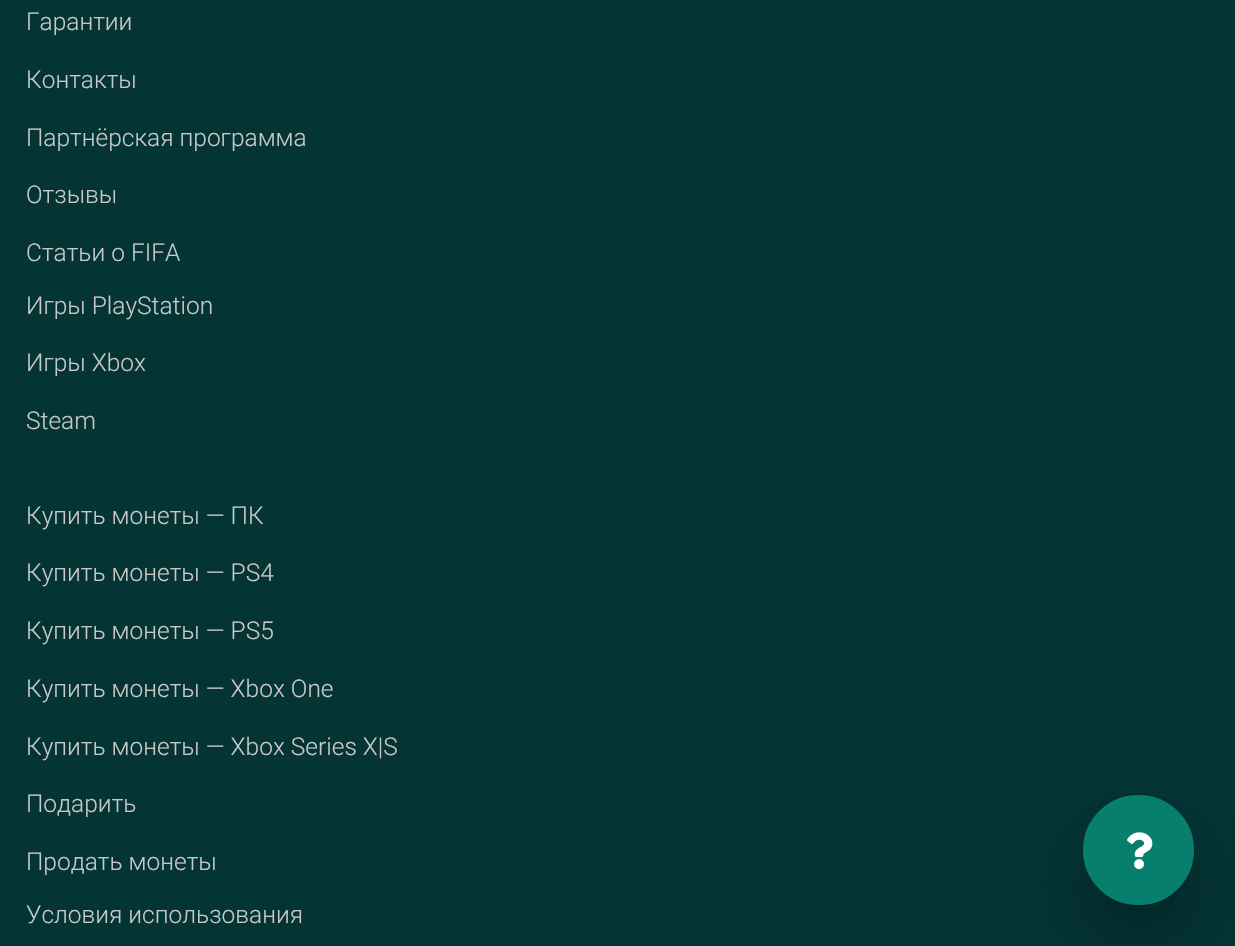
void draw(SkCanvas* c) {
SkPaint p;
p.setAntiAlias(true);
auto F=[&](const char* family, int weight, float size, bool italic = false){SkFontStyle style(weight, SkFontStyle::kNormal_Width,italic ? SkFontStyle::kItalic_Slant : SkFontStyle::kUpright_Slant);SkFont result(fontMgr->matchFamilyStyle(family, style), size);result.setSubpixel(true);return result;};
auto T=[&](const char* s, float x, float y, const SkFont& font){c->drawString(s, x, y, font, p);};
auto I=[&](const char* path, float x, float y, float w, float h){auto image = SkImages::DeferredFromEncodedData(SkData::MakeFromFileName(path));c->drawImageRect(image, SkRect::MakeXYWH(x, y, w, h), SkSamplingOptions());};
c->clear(0xff043434);
auto f1 = F("Roboto",300,24.5);
p.setColor(0xffc8c8c8);
T("Гарантии",26,30,f1);
T("Контакты",26,88,f1);
T("Партнёрская программа",26,146,f1);
T("Отзывы",26,203,f1);
T("Статьи о FIFA",26,261,f1);
T("Игры PlayStation",26,314,f1);
T("Игры Xbox",26,371,f1);
T("Steam",26,429,f1);
T("Купить монеты — ПК",26,524,f1);
T("Купить монеты — PS4",26,581,f1);
T("Купить монеты — PS5",26,639,f1);
T("Купить монеты — Xbox One",26,697,f1);
T("Купить монеты — Xbox Series X|S",26,755,f1);
T("Подарить",26,812,f1);
T("Продать монеты",26,870,f1);
T("Условия использования",26,923,f1);
p.setColor(0x4d000000);
p.setMaskFilter(SkMaskFilter::MakeBlur(kNormal_SkBlurStyle, 35));
c->drawRoundRect(SkRect::MakeXYWH(1083,830,111,110),55,55,p);
p.setMaskFilter(nullptr);
p.setStroke(true);
p.setStrokeWidth(2);
p.setColor(0x1f001433);
c->drawRoundRect(SkRect::MakeXYWH(1083,794,111,112),55.5,55.5,p);
p.setStroke(false);
p.setColor(0xff087e6c);
c->drawRoundRect(SkRect::MakeXYWH(1084,796,109,108),54,54,p);
p.setStroke(true);
c->drawRoundRect(SkRect::MakeXYWH(1084,796,109,108),54,54,p);
I("1.png",1127,832,26,38);
}
